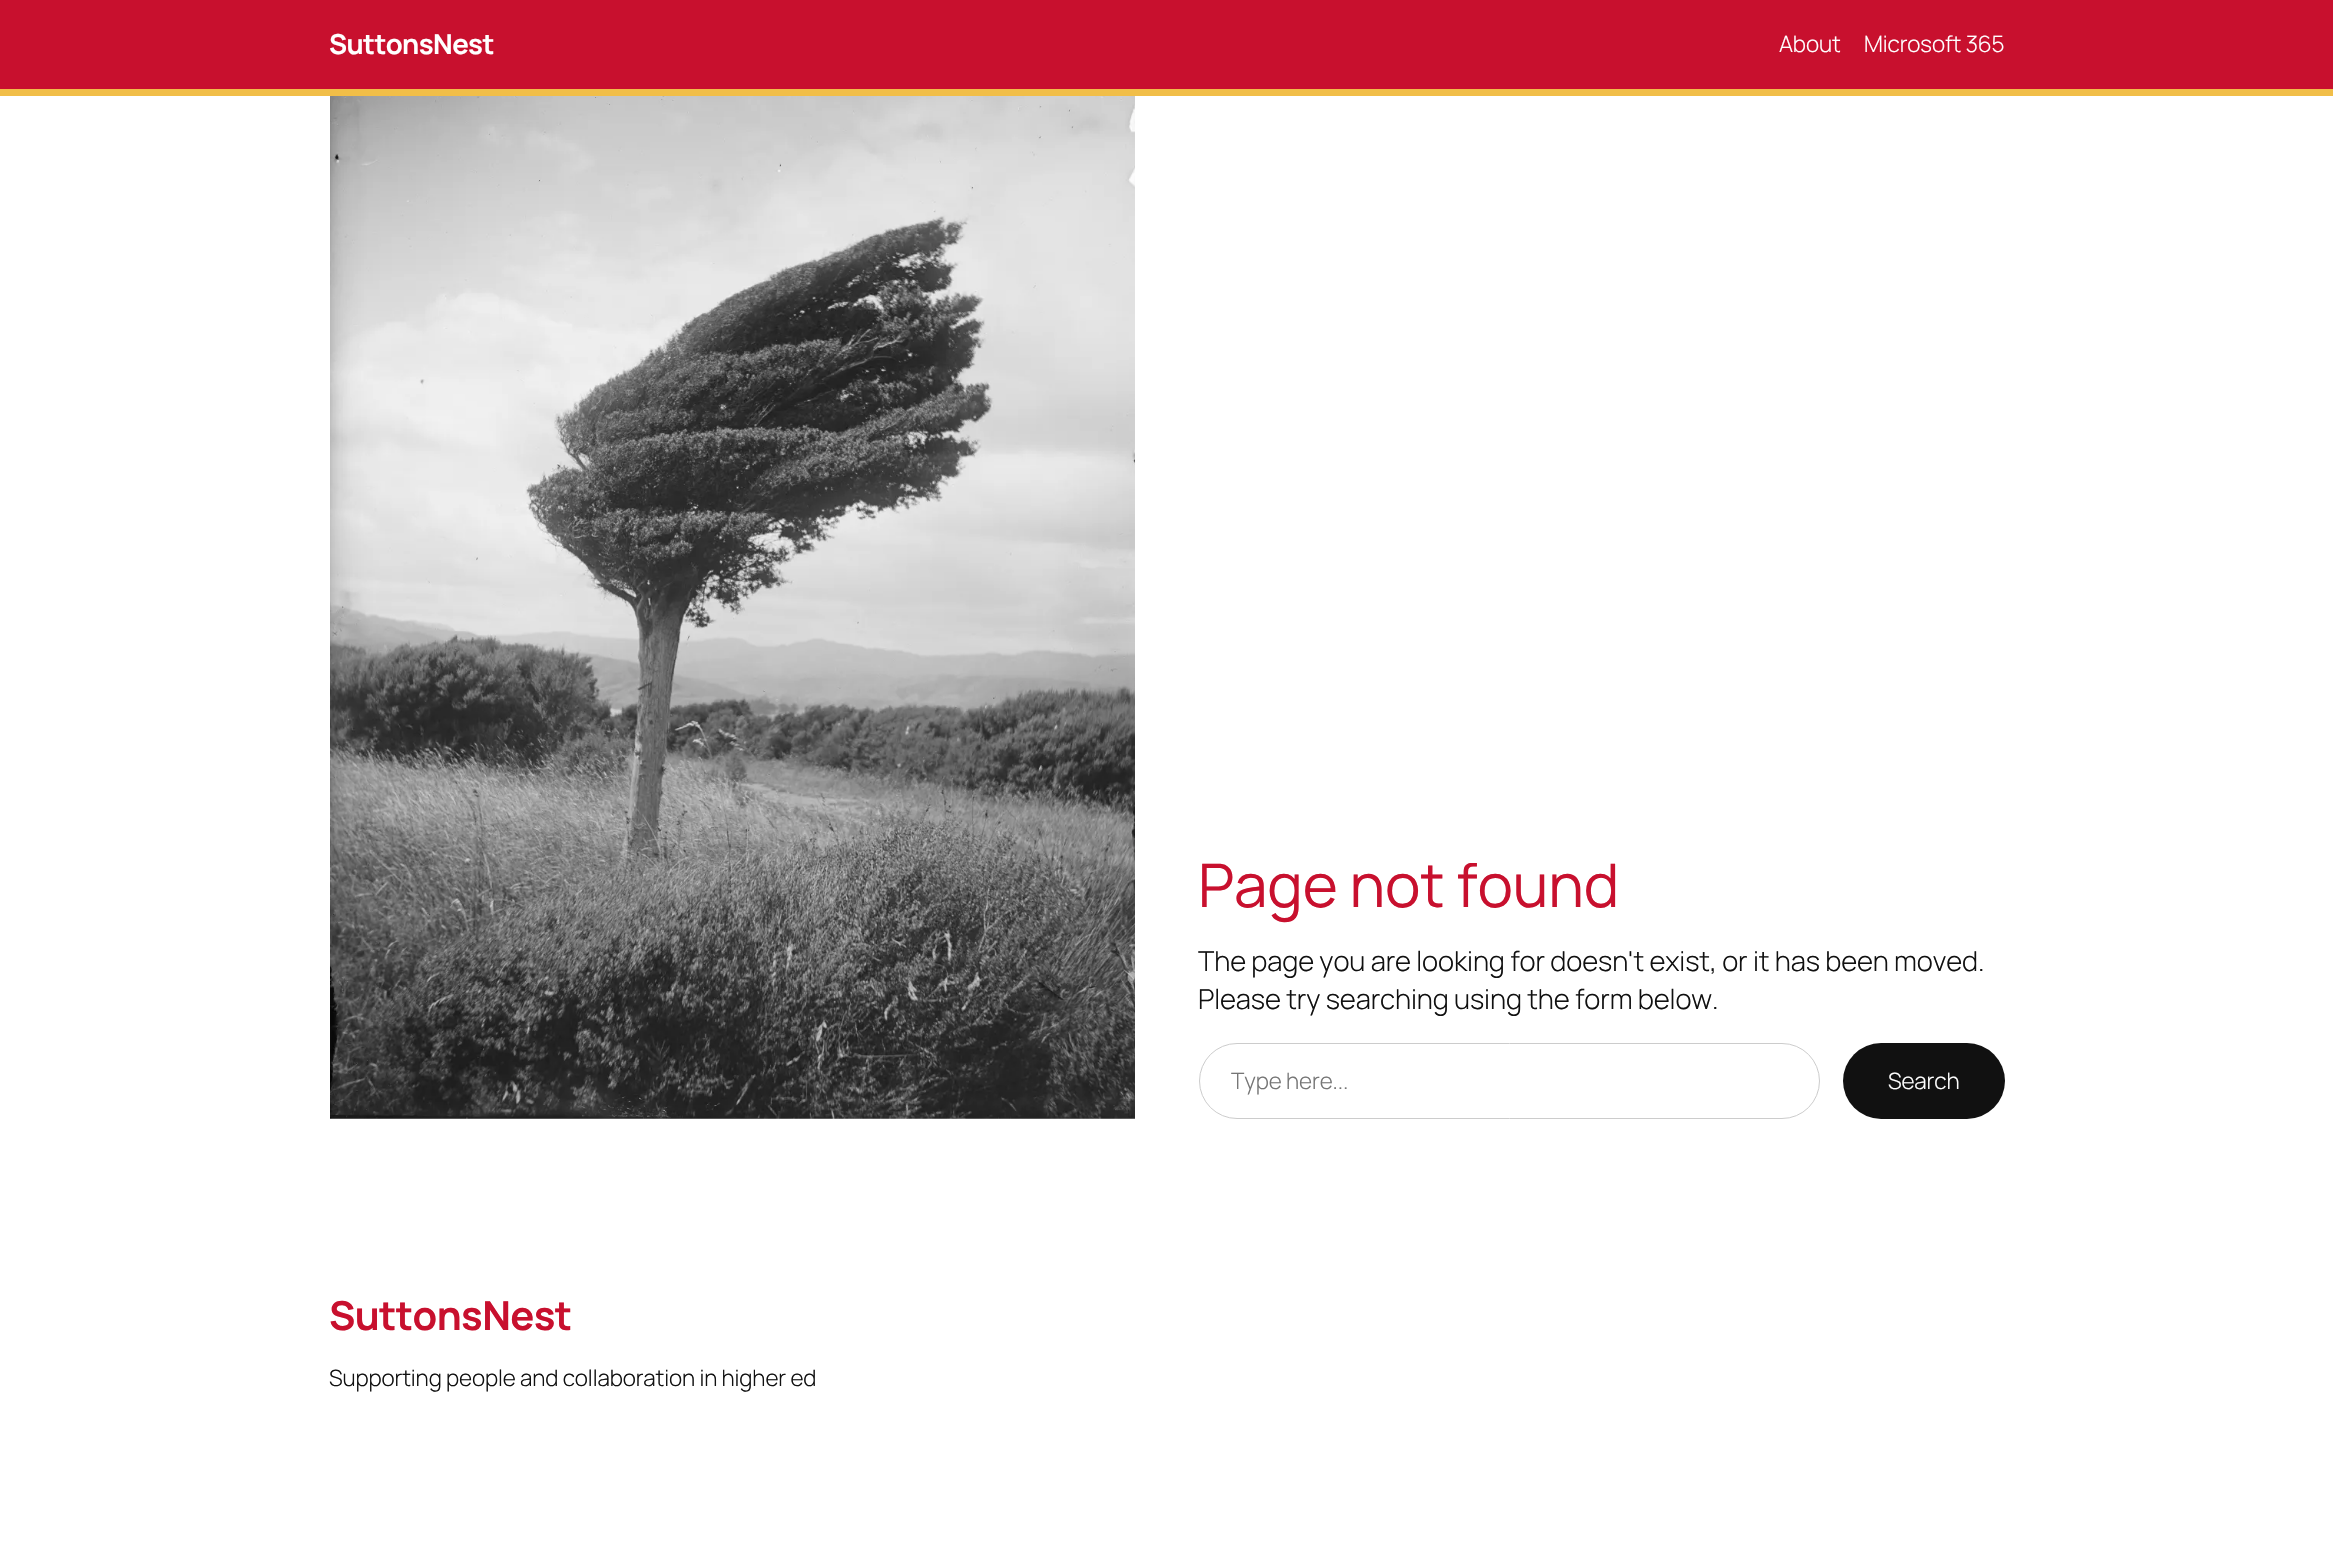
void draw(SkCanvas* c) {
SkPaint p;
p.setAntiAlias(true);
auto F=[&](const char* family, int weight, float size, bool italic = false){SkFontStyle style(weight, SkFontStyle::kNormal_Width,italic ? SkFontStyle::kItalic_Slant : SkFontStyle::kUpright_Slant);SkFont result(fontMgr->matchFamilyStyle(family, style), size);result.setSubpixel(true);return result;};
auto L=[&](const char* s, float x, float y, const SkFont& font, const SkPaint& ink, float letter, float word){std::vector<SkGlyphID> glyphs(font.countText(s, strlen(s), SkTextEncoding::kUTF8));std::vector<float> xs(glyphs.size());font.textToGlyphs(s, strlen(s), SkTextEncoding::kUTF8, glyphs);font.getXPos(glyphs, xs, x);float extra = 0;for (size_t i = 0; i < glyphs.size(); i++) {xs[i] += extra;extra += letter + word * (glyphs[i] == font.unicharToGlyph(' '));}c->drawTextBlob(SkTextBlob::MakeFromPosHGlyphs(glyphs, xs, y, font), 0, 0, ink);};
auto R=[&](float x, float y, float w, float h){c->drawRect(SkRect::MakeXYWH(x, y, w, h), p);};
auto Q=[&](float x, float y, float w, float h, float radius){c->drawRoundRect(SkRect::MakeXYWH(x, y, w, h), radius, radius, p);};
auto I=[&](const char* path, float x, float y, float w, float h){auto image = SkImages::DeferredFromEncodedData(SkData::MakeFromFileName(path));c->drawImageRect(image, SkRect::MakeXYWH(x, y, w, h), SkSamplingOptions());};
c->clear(0xffffffff);
p.setColor(0xffc8102e);
R(0,0,2333,89);
p.setColor(0xfff1be48);
R(0,89,2333,7);
auto f1 = F("Manrope",700,27.5);
p.setColor(0xffffffff);
L("SuttonsNest",329,54,f1,p,-.6,0);
auto f2 = F("Manrope",300,22.5);
L("About",1779,52,f2,p,-.12,0);
L("Microsoft 365",1864,52,f2,p,-.12,0);
I("1.png",330,96,805,1023);
auto f3 = F("Manrope",400,60);
p.setColor(0xffc8102e);
L("Page not found",1198,907,f3,p,-.12,0);
auto f4 = F("Manrope",300,27.5);
p.setColor(0xff111111);
L("The page you are looking for doesn't exist, or it has been moved.",1198,971,f4,p,-.12,0);
L("Please try searching using the form below.",1198,1009,f4,p,-.12,0);
p.setStroke(true);
p.setStrokeWidth(1);
p.setColor(0xffcccccc);
c->drawRoundRect(SkRect::MakeXYWH(1199.5,1043.5,620,75),37.5,37.5,p);
p.setStroke(false);
p.setColor(0xff757575);
L("Type here...",1231,1089,f2,p,-.12,0);
p.setColor(0xff111111);
Q(1843,1043,162,76,38);
p.setColor(0xffffffff);
L("Search",1888,1089,f2,p,-.12,0);
auto f5 = F("Manrope",700,40);
p.setColor(0xffc8102e);
L("SuttonsNest",329,1330,f5,p,-.6,0);
p.setColor(0xff111111);
L("Supporting people and collaboration in higher ed",329,1386,f2,p,-.12,0);
}
